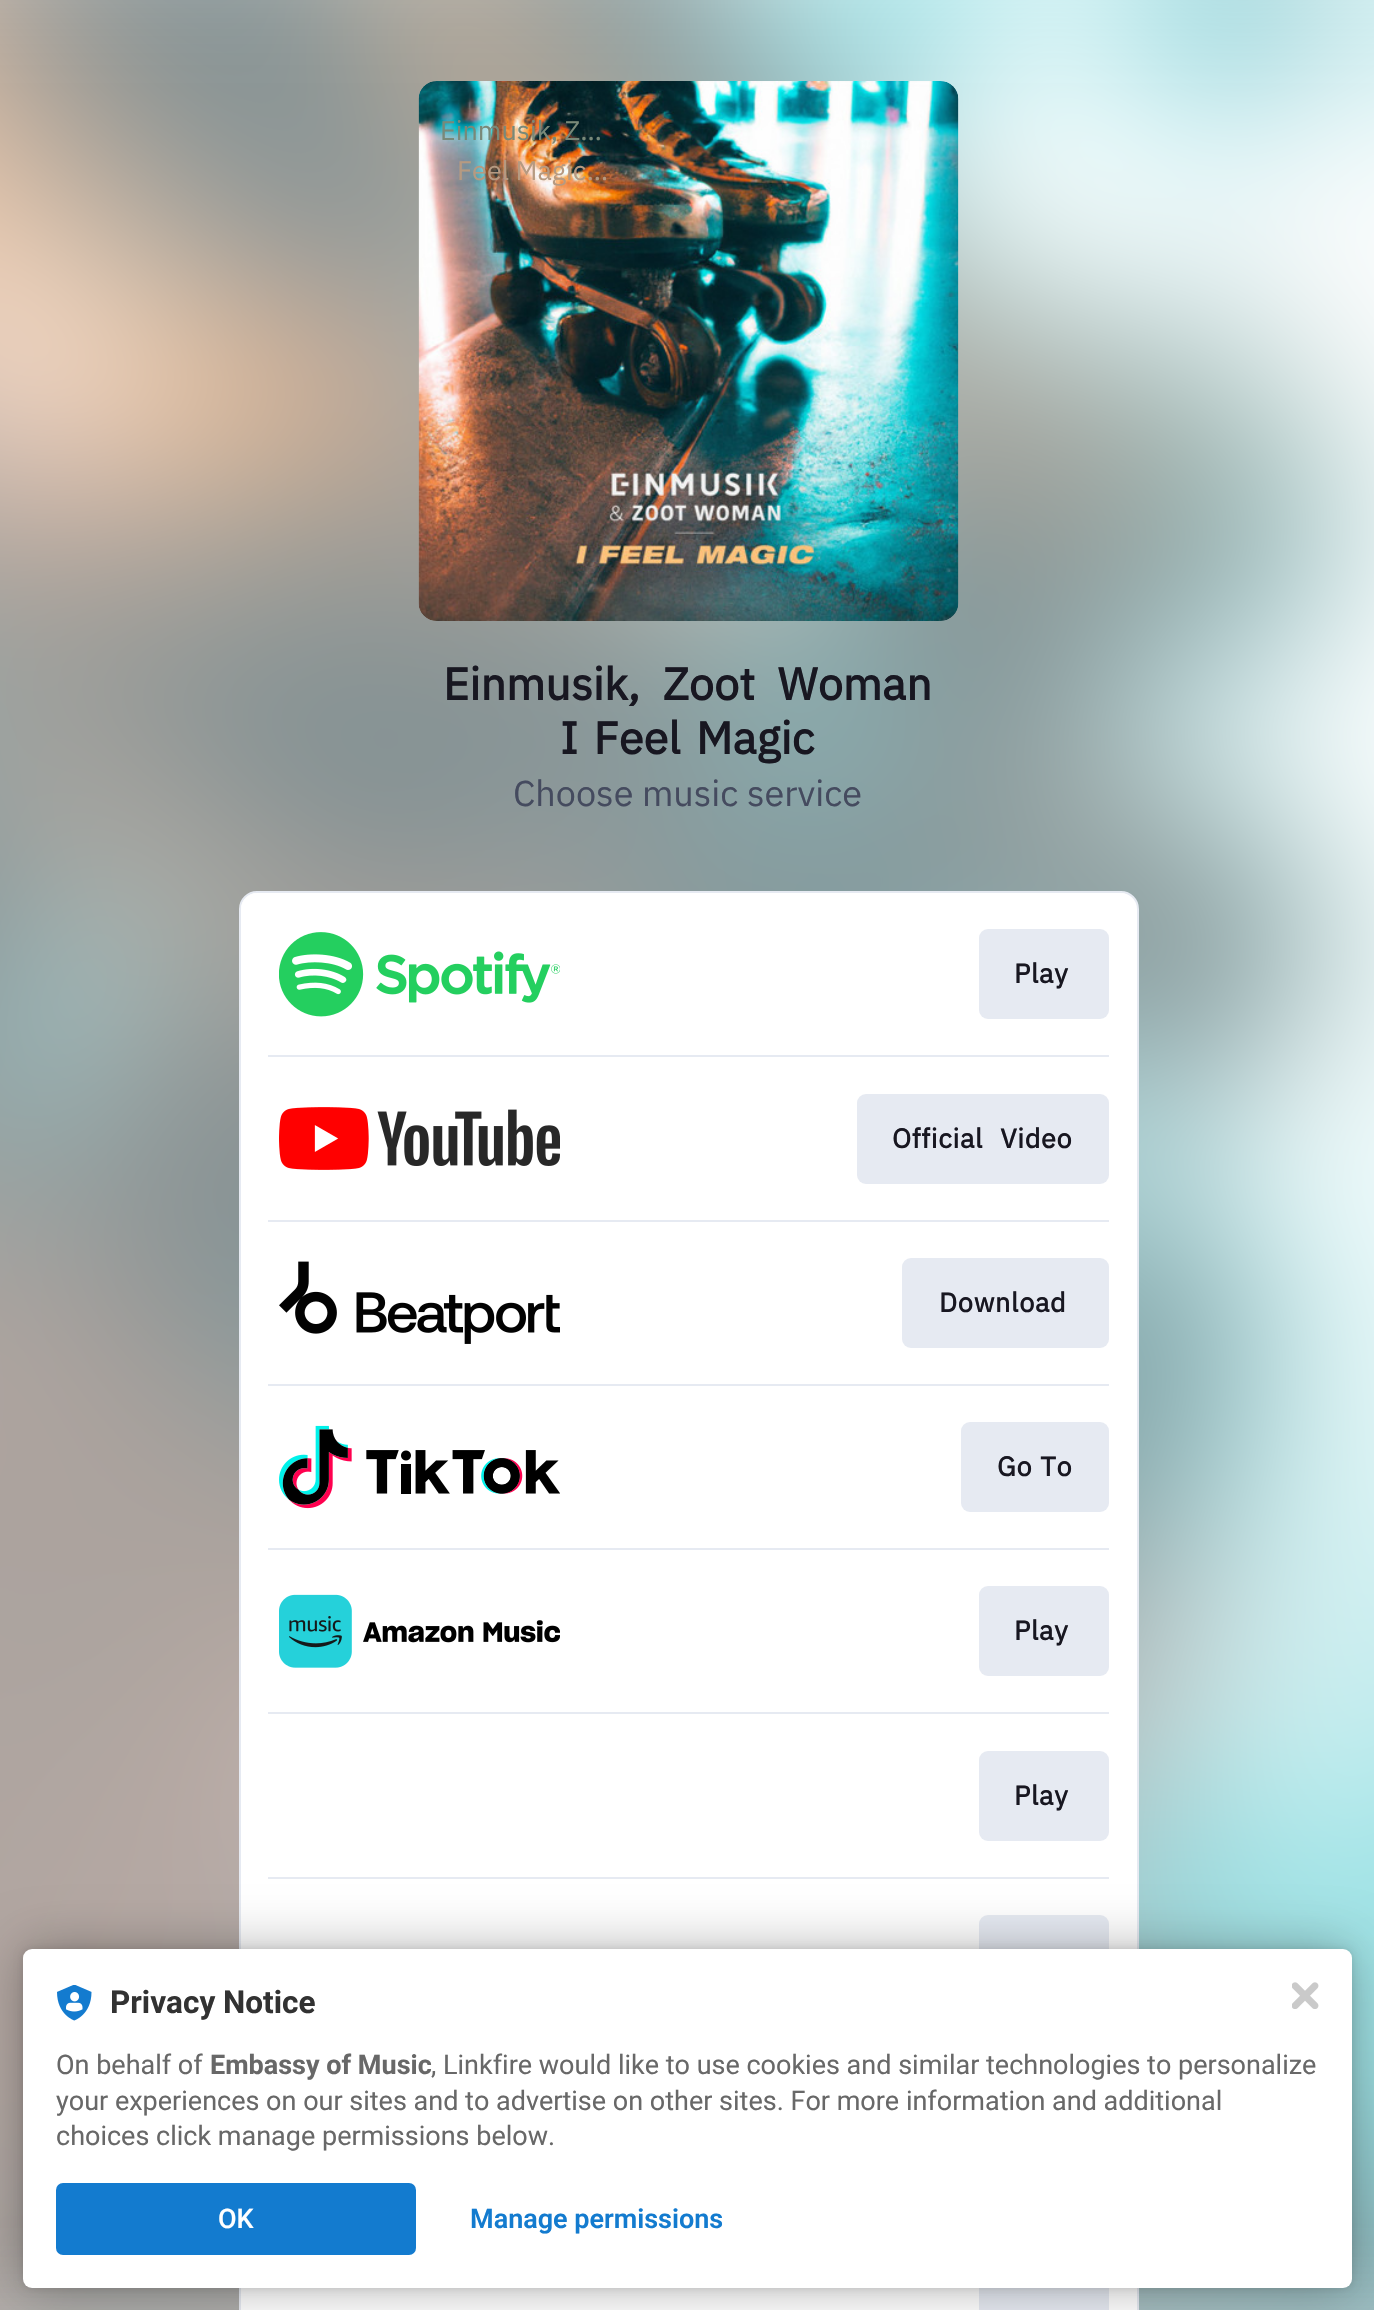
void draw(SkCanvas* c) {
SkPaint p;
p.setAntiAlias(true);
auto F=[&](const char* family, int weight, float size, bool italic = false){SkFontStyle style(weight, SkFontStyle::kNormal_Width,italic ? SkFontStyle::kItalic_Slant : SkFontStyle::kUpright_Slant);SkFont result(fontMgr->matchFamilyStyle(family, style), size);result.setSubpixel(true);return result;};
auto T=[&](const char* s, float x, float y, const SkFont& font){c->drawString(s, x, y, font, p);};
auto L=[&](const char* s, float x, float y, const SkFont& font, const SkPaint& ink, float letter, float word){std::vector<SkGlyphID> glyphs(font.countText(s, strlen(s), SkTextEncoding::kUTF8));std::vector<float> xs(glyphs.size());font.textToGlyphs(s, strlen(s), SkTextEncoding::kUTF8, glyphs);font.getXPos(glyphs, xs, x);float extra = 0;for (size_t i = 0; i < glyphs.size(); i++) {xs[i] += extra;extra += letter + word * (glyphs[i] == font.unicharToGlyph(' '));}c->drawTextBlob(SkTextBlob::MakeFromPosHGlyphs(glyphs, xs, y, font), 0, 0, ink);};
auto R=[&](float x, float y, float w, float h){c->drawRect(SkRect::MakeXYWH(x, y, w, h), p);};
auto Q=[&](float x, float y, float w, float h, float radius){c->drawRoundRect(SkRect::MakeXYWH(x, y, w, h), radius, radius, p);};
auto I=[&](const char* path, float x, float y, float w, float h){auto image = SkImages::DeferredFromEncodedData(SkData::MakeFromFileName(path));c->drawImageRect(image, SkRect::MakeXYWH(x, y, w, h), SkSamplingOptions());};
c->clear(0xffffffff);
I("1.png",0,0,1374,2310);
I("2.png",418,81,541,540);
auto f1 = F("IBM Plex Sans",400,27);
p.setColor(0xff798979);
T("Einmusik, Z…",440,140,f1);
p.setColor(0xffb69a81);
T("Feel Magic…",457,180,f1);
auto f2 = F("IBM Plex Sans",700,45);
p.setColor(0xff181721);
L("Einmusik, Zoot Woman",443,700,f2,p,0,12);
L("I Feel Magic",560,754,f2,p,0,5);
auto f3 = F("IBM Plex Sans",400,36);
p.setColor(0xff454b5f);
T("Choose music service",513,806,f3);
p.setColor(0xffffffff);
c->drawRoundRect(SkRect::MakeXYWH(240,892,898,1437),17,17,p);
p.setStroke(true);
p.setStrokeWidth(2);
p.setColor(0xffe6eaf2);
c->drawRoundRect(SkRect::MakeXYWH(240,892,898,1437),17,17,p);
p.setStroke(false);
p.setColor(0xffffffff);
Q(241,893,895,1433,16);
I("3.png",279,932,281,85);
p.setColor(0xffe6eaf2);
Q(979,929,130,90,9);
auto f4 = F("IBM Plex Sans",700,27);
p.setColor(0xff181721);
L("Play",1014,983,f4,p,.7,0);
p.setColor(0xffe6eaf2);
R(268,1055,841,2);
I("4.png",279,1107,281,63);
Q(857,1094,252,90,9);
p.setColor(0xff181721);
L("Official Video",892,1148,f4,p,.7,10);
p.setColor(0xffe6eaf2);
R(268,1220,841,2);
I("5.png",279,1261,281,83);
Q(902,1258,207,90,9);
p.setColor(0xff181721);
L("Download",939,1312,f4,p,.7,0);
p.setColor(0xffe6eaf2);
R(268,1384,841,2);
I("6.png",279,1425,281,84);
Q(961,1422,148,90,9);
p.setColor(0xff181721);
L("Go To",997,1476,f4,p,.7,1);
p.setColor(0xffe6eaf2);
R(268,1548,841,2);
I("7.png",279,1594,281,74);
Q(979,1586,130,90,9);
p.setColor(0xff181721);
L("Play",1014,1640,f4,p,.7,0);
p.setColor(0xffe6eaf2);
R(268,1712,841,2);
Q(979,1751,130,90,9);
p.setColor(0xff181721);
L("Play",1014,1805,f4,p,.7,0);
p.setColor(0xffe6eaf2);
R(268,1877,841,2);
Q(979,1915,130,90,9);
R(979,2288,130,22);
p.setColor(0x1f000000);
p.setMaskFilter(SkMaskFilter::MakeBlur(kNormal_SkBlurStyle, 4.5));
c->drawRoundRect(SkRect::MakeXYWH(23,1949,1329,339),9,9,p);
p.setMaskFilter(nullptr);
p.setColor(0x4d000000);
p.setMaskFilter(SkMaskFilter::MakeBlur(kNormal_SkBlurStyle, 27));
c->drawRoundRect(SkRect::MakeXYWH(23,1949,1329,339),9,9,p);
p.setMaskFilter(nullptr);
p.setColor(0xffffffff);
Q(23,1949,1329,339,9);
I("8.png",1292,1982,27,27);
I("9.png",57,1985,35,36);
auto f5 = F("Roboto",700,31.5);
p.setColor(0xff323232);
T("Privacy Notice",110,2013,f5);
auto f6 = F("Roboto",400,27);
p.setColor(0xff686868);
T("On behalf of",56,2074,f6);
auto f7 = F("Roboto",700,27);
T("Embassy of Music",210,2074,f7);
T(", Linkfire would like to use cookies and similar technologies to personalize",431,2074,f6);
T("your experiences on our sites and to advertise on other sites. For more information and additional",56,2110,f6);
T("choices click manage permissions below.",56,2145,f6);
p.setColor(0xff137bcf);
Q(56,2183,360,72,7);
auto f8 = F("Roboto",500,27);
p.setColor(0xffffffff);
T("OK",218,2228,f8);
auto f9 = F("Roboto",600,27);
p.setColor(0xff137bcf);
T("Manage permissions",470,2228,f9);
}
